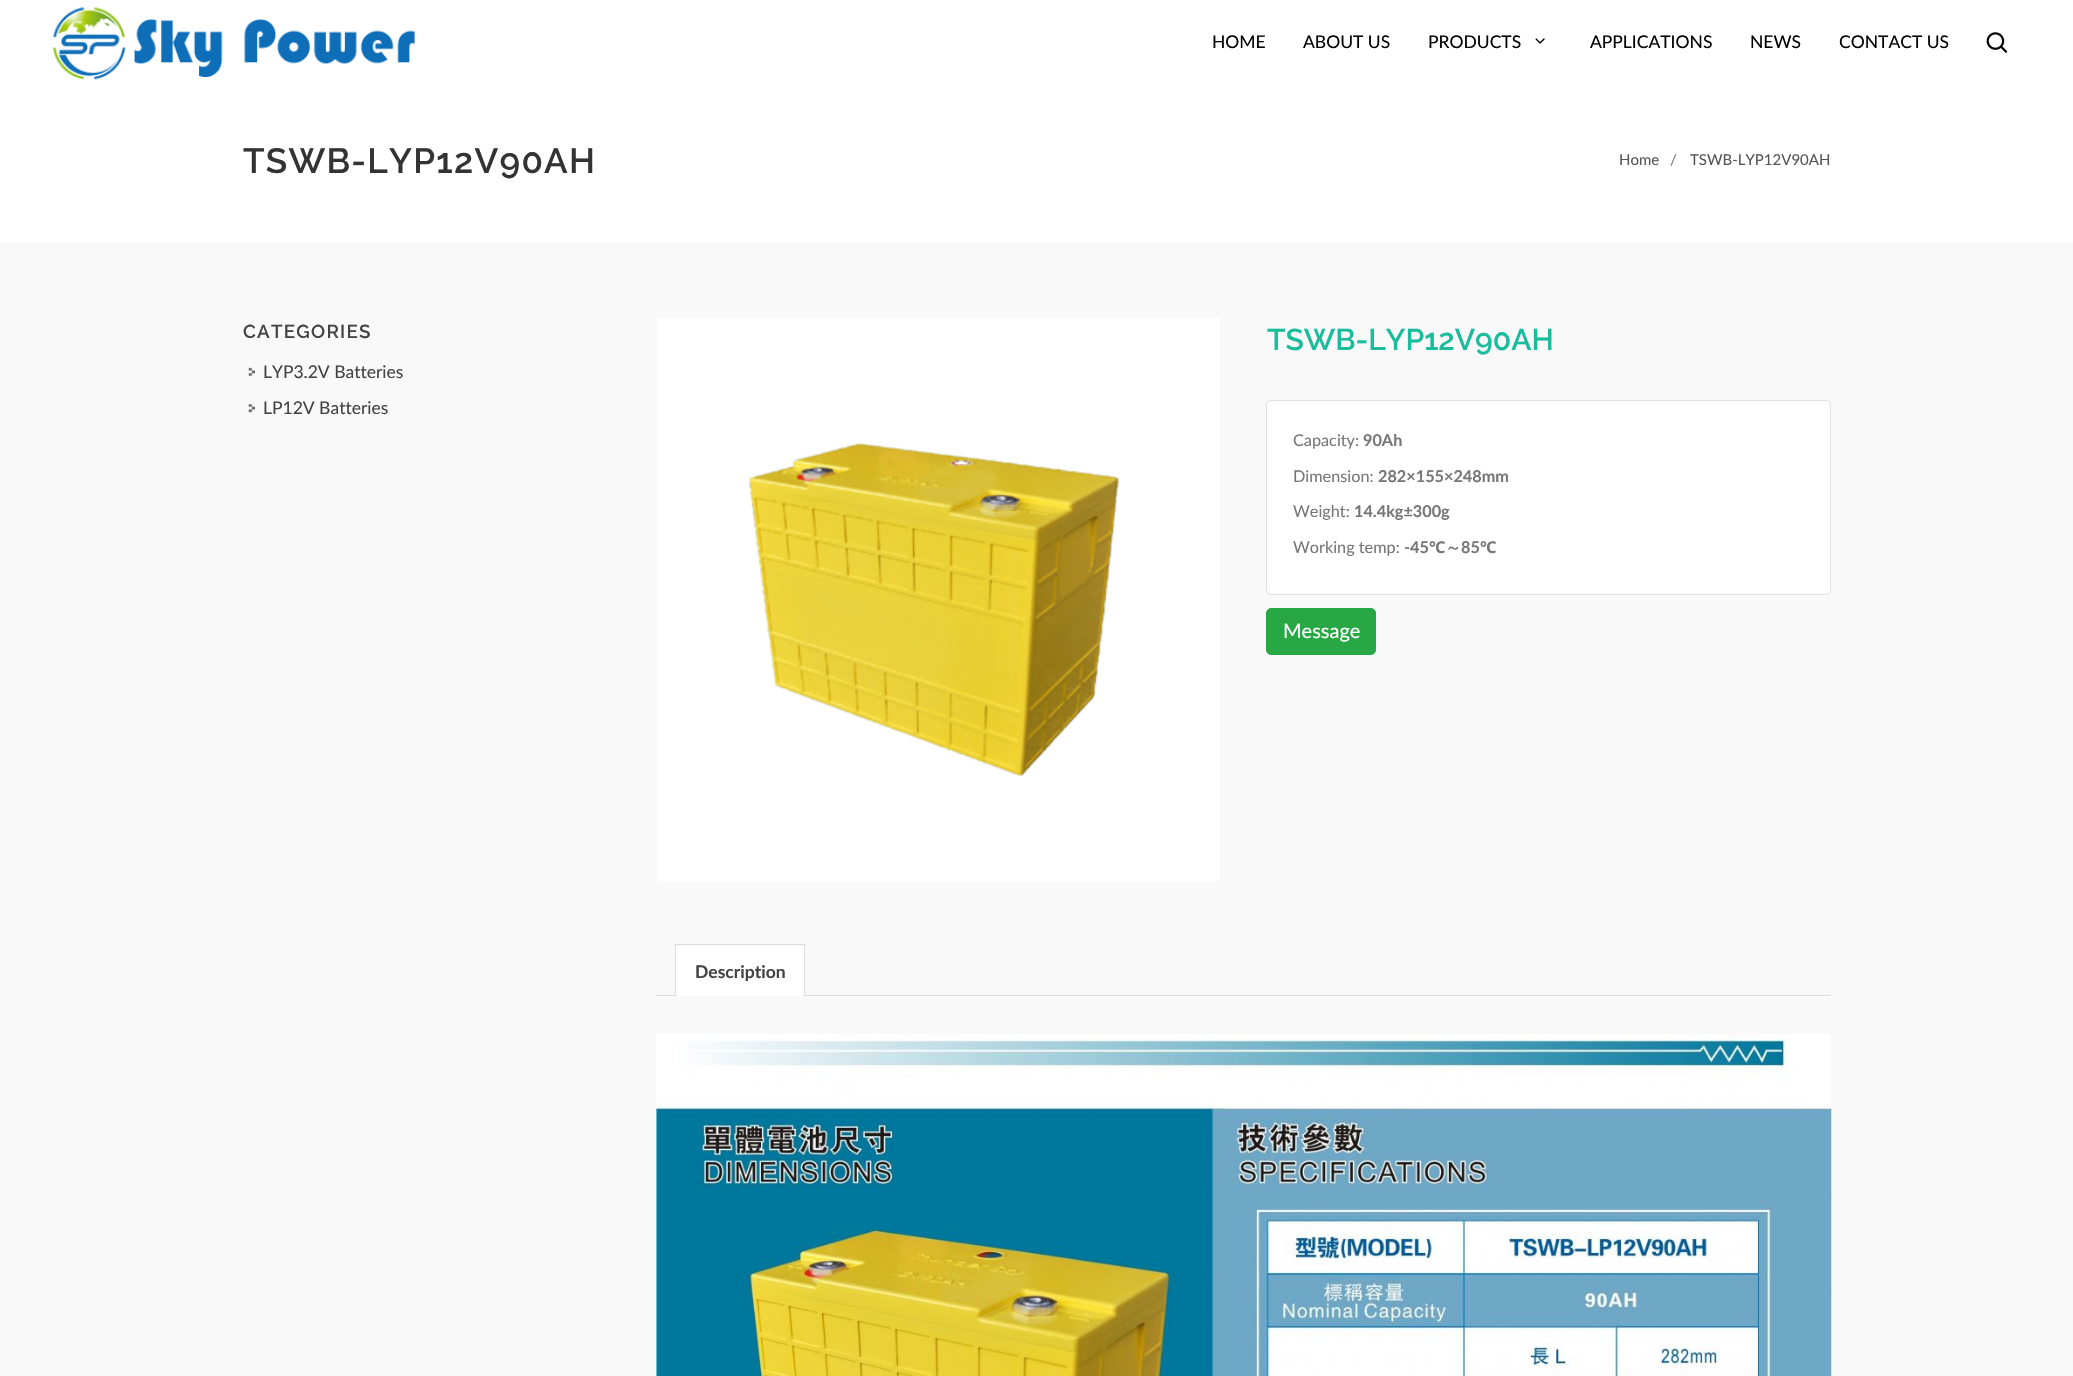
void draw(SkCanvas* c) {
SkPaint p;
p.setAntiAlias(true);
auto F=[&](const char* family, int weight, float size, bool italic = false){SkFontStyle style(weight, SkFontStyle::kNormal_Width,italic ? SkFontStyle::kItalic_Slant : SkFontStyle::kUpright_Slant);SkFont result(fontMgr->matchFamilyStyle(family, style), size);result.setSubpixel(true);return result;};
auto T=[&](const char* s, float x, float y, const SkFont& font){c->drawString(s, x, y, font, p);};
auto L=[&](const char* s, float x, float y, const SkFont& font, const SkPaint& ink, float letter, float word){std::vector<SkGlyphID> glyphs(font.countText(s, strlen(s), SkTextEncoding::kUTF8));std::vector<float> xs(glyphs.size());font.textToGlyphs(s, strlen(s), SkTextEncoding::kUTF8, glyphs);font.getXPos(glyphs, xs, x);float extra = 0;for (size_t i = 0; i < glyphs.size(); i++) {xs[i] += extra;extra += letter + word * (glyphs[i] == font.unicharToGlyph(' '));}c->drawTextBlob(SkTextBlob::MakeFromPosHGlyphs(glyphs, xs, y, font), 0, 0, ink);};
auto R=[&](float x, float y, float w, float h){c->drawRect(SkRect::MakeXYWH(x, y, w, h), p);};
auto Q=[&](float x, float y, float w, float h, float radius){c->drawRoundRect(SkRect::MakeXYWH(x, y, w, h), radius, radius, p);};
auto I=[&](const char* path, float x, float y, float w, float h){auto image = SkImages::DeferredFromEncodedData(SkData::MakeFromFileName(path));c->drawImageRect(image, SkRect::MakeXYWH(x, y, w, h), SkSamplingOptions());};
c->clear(0xffffffff);
I("1.png",53,7,362,73);
auto f1 = F("Lato",400,17.5);
p.setColor(0xff010101);
T("HOME",1212,48,f1);
T("ABOUT US",1303,48,f1);
T("PRODUCTS",1428,48,f1);
I("2.png",1535,38,10,6);
T("APPLICATIONS",1590,48,f1);
T("NEWS",1750,48,f1);
T("CONTACT US",1839,48,f1);
I("3.png",1986,32,22,21);
p.setColor(0xfff9f9f9);
R(0,243,2073,1133);
auto f2 = F("Raleway",600,35);
p.setColor(0xff333333);
L("TSWB-LYP12V90AH",243,173,f2,p,1.25,0);
auto f3 = F("Lato",400,15);
p.setColor(0xff555555);
T("Home",1619,165,f3);
p.setColor(0xff6c757d);
T("/",1670,165,f3);
p.setColor(0xff555555);
T("TSWB-LYP12V90AH",1690,165,f3);
auto f4 = F("Raleway",600,18.75);
p.setColor(0xff444444);
L("CATEGORIES",243,338,f4,p,1.25,0);
I("4.png",248,367,7,9);
T("LYP3.2V Batteries",263,378,f1);
I("5.png",248,404,7,9);
T("LP12V Batteries",263,414,f1);
I("6.png",657,318,563,563);
auto f5 = F("Raleway",600,30);
p.setColor(0xff1abc9c);
T("TSWB-LYP12V90AH",1267,350,f5);
p.setColor(0xffffffff);
Q(1266,400,565,195,5);
p.setStroke(true);
p.setStrokeWidth(1);
p.setColor(0x1f000000);
c->drawRoundRect(SkRect::MakeXYWH(1266.5,400.5,564,194),4.5,4.5,p);
auto f6 = F("Lato",400,16.25);
p.setStroke(false);
p.setColor(0xff777777);
T("Capacity:",1293,446,f6);
auto f7 = F("Lato",700,16.25);
T("90Ah",1363,446,f7);
T("Dimension:",1293,482,f6);
T("282×155×248mm",1378,482,f7);
T("Weight:",1293,517,f6);
T("14.4kg±300g",1354,517,f7);
T("Working temp:",1293,553,f6);
T("-45",1404,553,f7);
auto f8 = F("Noto Sans",700,16.25);
T("℃",1429,553,f8);
auto f9 = F("WenQuanYi Zen Hei",700,16.25);
T("～",1445,553,f9);
T("85",1461,553,f7);
T("℃",1480,553,f8);
p.setColor(0xff28a745);
c->drawRoundRect(SkRect::MakeXYWH(1266.5,608.5,109,46),4.5,4.5,p);
p.setStroke(true);
c->drawRoundRect(SkRect::MakeXYWH(1266.5,608.5,109,46),4.5,4.5,p);
auto f10 = F("Lato",400,20);
p.setStroke(false);
p.setColor(0xffffffff);
T("Message",1283,638,f10);
p.setColor(0xffdddddd);
R(656,995,1175,1);
R(675,944,130,1);
R(804,944,1,51);
R(675,944,1,51);
p.setColor(0xffffffff);
R(676,946,128,50);
auto f11 = F("Lato",700,17.5);
p.setColor(0xff444444);
T("Description",695,978,f11);
I("7.png",656,1034,1176,342);
}
